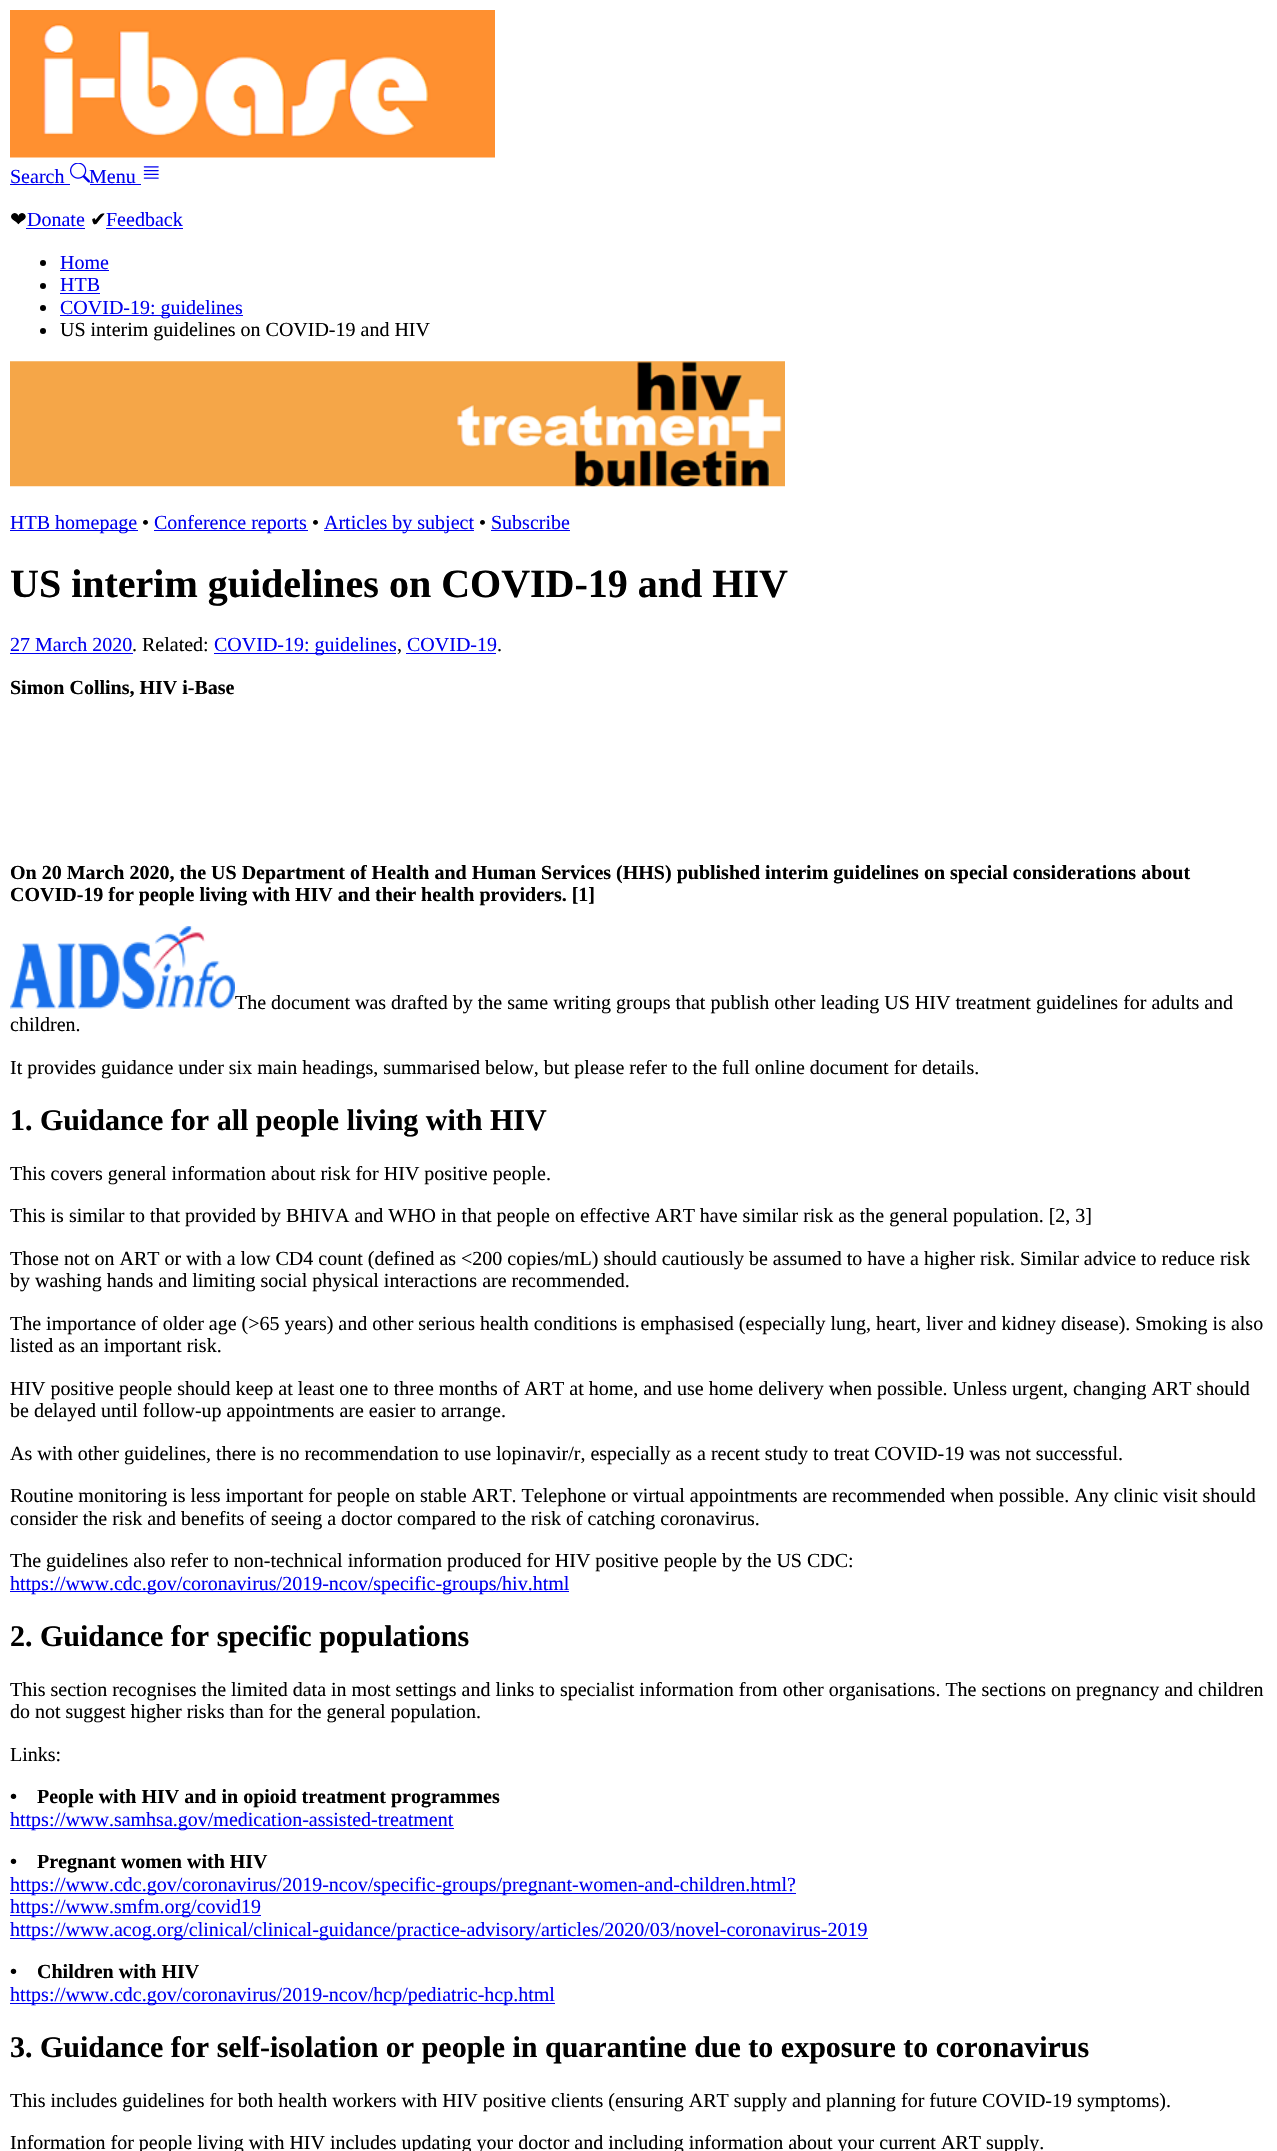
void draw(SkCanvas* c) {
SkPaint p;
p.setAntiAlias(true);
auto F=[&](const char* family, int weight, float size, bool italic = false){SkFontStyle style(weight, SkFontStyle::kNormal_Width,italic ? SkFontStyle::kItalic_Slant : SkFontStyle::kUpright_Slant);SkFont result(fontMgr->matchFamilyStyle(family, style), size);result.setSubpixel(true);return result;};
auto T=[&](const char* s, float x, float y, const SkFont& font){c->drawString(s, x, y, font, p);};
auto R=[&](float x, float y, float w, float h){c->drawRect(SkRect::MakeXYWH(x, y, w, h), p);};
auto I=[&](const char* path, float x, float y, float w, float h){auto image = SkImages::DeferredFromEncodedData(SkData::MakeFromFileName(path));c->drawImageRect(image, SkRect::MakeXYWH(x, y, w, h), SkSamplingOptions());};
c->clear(0xffffffff);
I("1.png",10,10,485,148);
auto f1 = F("Liberation Serif",400,20);
p.setColor(0xff0000ee);
T("Search",10,183,f1);
R(10,184,60,1);
T("Menu",89,183,f1);
I("2.png",70,163,20,20);
R(90,184,51,1);
I("3.png",143,166,16,13);
auto f2 = F("DejaVu Sans",400,20);
p.setColor(0xff000000);
T("❤",10,226,f2);
p.setColor(0xff0000ee);
T("Donate",27,226,f1);
R(26,228,59,1);
p.setColor(0xff000000);
T("✔",90,226,f2);
p.setColor(0xff0000ee);
T("Feedback",106,226,f1);
R(106,228,77,1);
p.setColor(0xff000000);
c->drawCircle(43,263,3,p);
p.setColor(0xff0000ee);
T("Home",60,269,f1);
R(60,270,49,1);
p.setColor(0xff000000);
c->drawCircle(43,286,3,p);
p.setColor(0xff0000ee);
T("HTB",60,291,f1);
R(60,293,40,1);
p.setColor(0xff000000);
c->drawCircle(43,308,3,p);
p.setColor(0xff0000ee);
R(60,315,183,1);
T("COVID-19: guidelines",60,314,f1);
p.setColor(0xff000000);
c->drawCircle(43,331,3,p);
T("US interim guidelines on COVID-19 and HIV",60,336,f1);
I("4.png",10,361,775,126);
p.setColor(0xff0000ee);
R(10,530,128,1);
T("HTB homepage",10,529,f1);
p.setColor(0xff000000);
T("•",142,529,f1);
p.setColor(0xff0000ee);
R(154,530,154,1);
T("Conference reports",154,529,f1);
p.setColor(0xff000000);
T("•",312,529,f1);
p.setColor(0xff0000ee);
R(324,530,150,1);
T("Articles by subject",324,529,f1);
p.setColor(0xff000000);
T("•",479,529,f1);
p.setColor(0xff0000ee);
T("Subscribe",491,529,f1);
R(491,530,79,1);
auto f3 = F("Liberation Serif",700,40);
p.setColor(0xff000000);
T("US interim guidelines on COVID-19 and HIV",10,597,f3);
p.setColor(0xff0000ee);
T("27 March 2020",10,651,f1);
R(10,653,123,1);
p.setColor(0xff000000);
T(". Related:",132,651,f1);
p.setColor(0xff0000ee);
R(214,653,182,1);
T("COVID-19: guidelines",214,651,f1);
p.setColor(0xff000000);
T(",",397,651,f1);
p.setColor(0xff0000ee);
T("COVID-19",407,651,f1);
R(406,653,90,1);
p.setColor(0xff000000);
T(".",497,651,f1);
auto f4 = F("Liberation Serif",700,20);
T("Simon Collins, HIV i-Base",10,694,f4);
T("On 20 March 2020, the US Department of Health and Human Services (HHS) published interim guidelines on special considerations about",10,879,f4);
T("COVID-19 for people living with HIV and their health providers. [1]",10,901,f4);
I("5.png",10,926,225,83);
T("The document was drafted by the same writing groups that publish other leading US HIV treatment guidelines for adults and",235,1009,f1);
T("children.",10,1031,f1);
T("It provides guidance under six main headings, summarised below, but please refer to the full online document for details.",10,1074,f1);
auto f5 = F("Liberation Serif",700,30);
T("1. Guidance for all people living with HIV",10,1130,f5);
T("This covers general information about risk for HIV positive people.",10,1180,f1);
T("This is similar to that provided by BHIVA and WHO in that people on effective ART have similar risk as the general population. [2, 3]",10,1222,f1);
T("Those not on ART or with a low CD4 count (defined as <200 copies/mL) should cautiously be assumed to have a higher risk. Similar advice to reduce risk",10,1265,f1);
T("by washing hands and limiting social physical interactions are recommended.",10,1287,f1);
T("The importance of older age (>65 years) and other serious health conditions is emphasised (especially lung, heart, liver and kidney disease). Smoking is also",10,1330,f1);
T("listed as an important risk.",10,1352,f1);
T("HIV positive people should keep at least one to three months of ART at home, and use home delivery when possible. Unless urgent, changing ART should",10,1395,f1);
T("be delayed until follow-up appointments are easier to arrange.",10,1417,f1);
T("As with other guidelines, there is no recommendation to use lopinavir/r, especially as a recent study to treat COVID-19 was not successful.",10,1460,f1);
T("Routine monitoring is less important for people on stable ART. Telephone or virtual appointments are recommended when possible. Any clinic visit should",10,1502,f1);
T("consider the risk and benefits of seeing a doctor compared to the risk of catching coronavirus.",10,1525,f1);
T("The guidelines also refer to non-technical information produced for HIV positive people by the US CDC:",10,1567,f1);
p.setColor(0xff0000ee);
R(10,1591,559,1);
T("https://www.cdc.gov/coronavirus/2019-ncov/specific-groups/hiv.html",10,1590,f1);
p.setColor(0xff000000);
T("2. Guidance for specific populations",10,1646,f5);
T("This section recognises the limited data in most settings and links to specialist information from other organisations. The sections on pregnancy and children",10,1696,f1);
T("do not suggest higher risks than for the general population.",10,1718,f1);
T("Links:",10,1761,f1);
T("•    People with HIV and in opioid treatment programmes",10,1803,f4);
p.setColor(0xff0000ee);
R(10,1828,444,1);
T("https://www.samhsa.gov/medication-assisted-treatment",10,1826,f1);
p.setColor(0xff000000);
T("•    Pregnant women with HIV",10,1868,f4);
p.setColor(0xff0000ee);
R(10,1893,786,1);
T("https://www.cdc.gov/coronavirus/2019-ncov/specific-groups/pregnant-women-and-children.html?",10,1891,f1);
R(10,1915,251,1);
T("https://www.smfm.org/covid19",10,1913,f1);
R(10,1938,858,1);
T("https://www.acog.org/clinical/clinical-guidance/practice-advisory/articles/2020/03/novel-coronavirus-2019",10,1936,f1);
p.setColor(0xff000000);
T("•    Children with HIV",10,1978,f4);
p.setColor(0xff0000ee);
R(10,2003,545,1);
T("https://www.cdc.gov/coronavirus/2019-ncov/hcp/pediatric-hcp.html",10,2001,f1);
p.setColor(0xff000000);
T("3. Guidance for self-isolation or people in quarantine due to exposure to coronavirus",10,2057,f5);
T("This includes guidelines for both health workers with HIV positive clients (ensuring ART supply and planning for future COVID-19 symptoms).",10,2107,f1);
T("Information for people living with HIV includes updating your doctor and including information about your current ART supply.",10,2149,f1);
}
